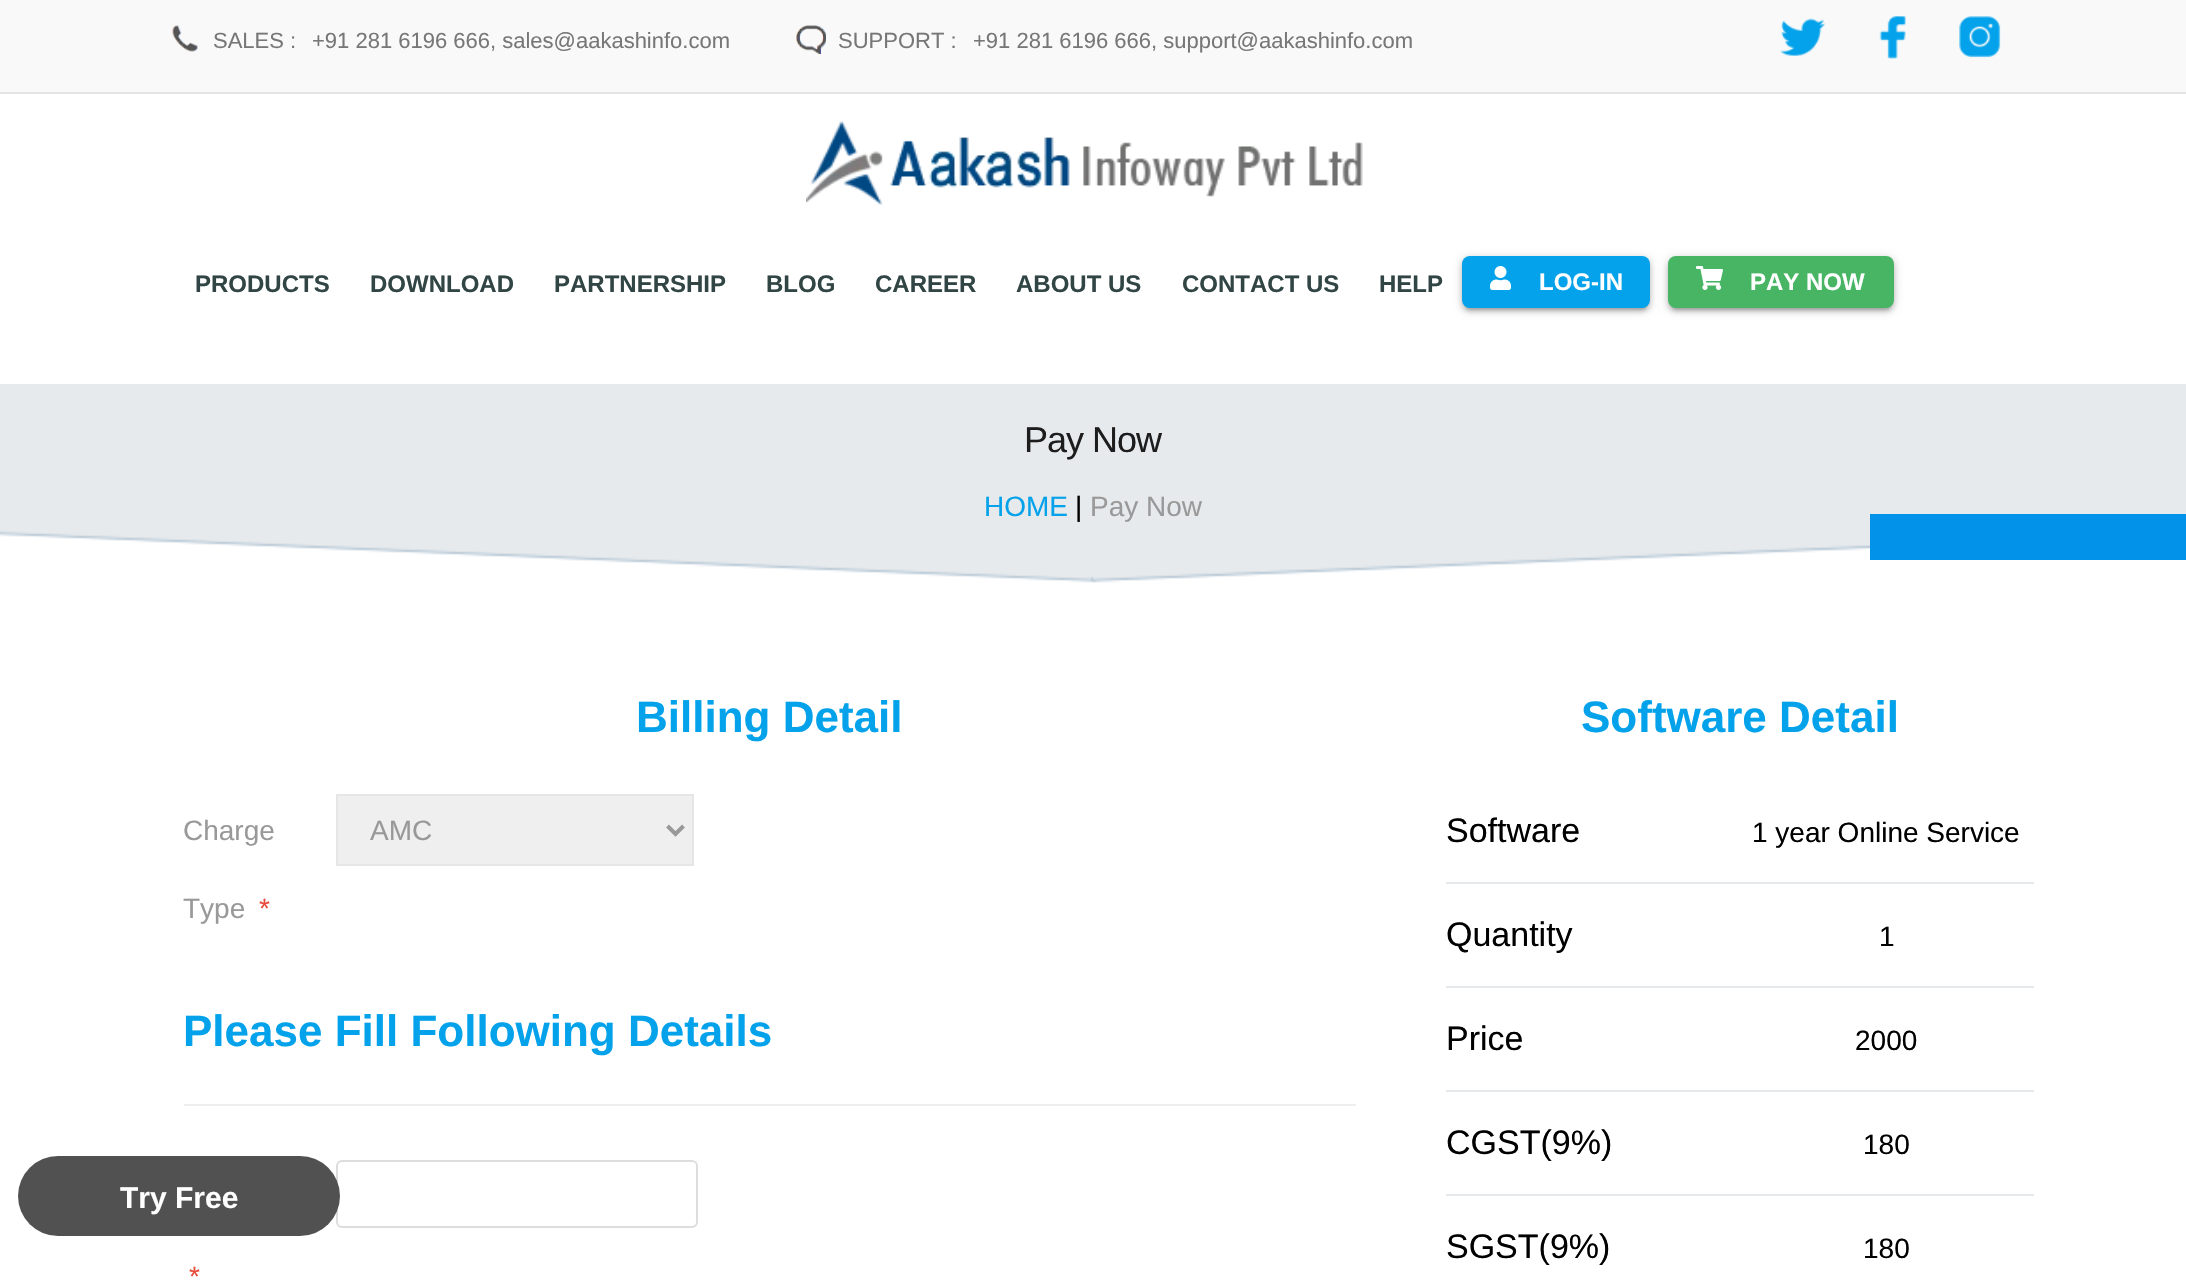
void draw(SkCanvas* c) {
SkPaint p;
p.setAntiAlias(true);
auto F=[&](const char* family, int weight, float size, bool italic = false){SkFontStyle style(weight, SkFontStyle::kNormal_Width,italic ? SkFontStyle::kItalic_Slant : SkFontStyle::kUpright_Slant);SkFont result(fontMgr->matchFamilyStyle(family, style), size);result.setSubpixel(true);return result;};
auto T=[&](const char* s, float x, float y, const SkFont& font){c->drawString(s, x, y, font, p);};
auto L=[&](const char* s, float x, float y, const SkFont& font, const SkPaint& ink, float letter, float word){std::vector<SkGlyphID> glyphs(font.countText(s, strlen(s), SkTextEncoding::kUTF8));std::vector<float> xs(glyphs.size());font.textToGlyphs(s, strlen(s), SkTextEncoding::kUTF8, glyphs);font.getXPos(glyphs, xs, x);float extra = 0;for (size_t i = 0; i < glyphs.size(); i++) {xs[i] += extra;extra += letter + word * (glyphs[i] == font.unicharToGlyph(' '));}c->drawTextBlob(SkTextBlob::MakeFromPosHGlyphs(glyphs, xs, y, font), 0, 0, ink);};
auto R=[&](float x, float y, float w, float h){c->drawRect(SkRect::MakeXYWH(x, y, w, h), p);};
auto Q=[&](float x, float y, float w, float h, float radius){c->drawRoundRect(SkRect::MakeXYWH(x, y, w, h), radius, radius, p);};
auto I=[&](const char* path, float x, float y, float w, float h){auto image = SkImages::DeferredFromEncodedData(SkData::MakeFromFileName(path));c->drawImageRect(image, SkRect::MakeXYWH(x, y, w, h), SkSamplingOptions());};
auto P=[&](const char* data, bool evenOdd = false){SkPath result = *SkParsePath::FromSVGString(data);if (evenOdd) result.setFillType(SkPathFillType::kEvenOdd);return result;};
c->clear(0xffffffff);
p.setColor(0xfff9f9f9);
R(0,0,2186,92);
p.setColor(0xffe4e4e4);
R(0,92,2186,2);
I("1.png",172,25,26,27);
auto f1 = F("Liberation Sans",400,22);
p.setColor(0xff777777);
T("SALES :",213,48,f1);
T("+91 281 6196 666, sales@aakashinfo.com",312,48,f1);
I("2.png",796,25,30,29);
T("SUPPORT :",838,48,f1);
T("+91 281 6196 666, support@aakashinfo.com",973,48,f1);
I("3.png",1780,18,46,38);
I("4.png",1879,16,27,43);
I("5.png",1959,16,42,42);
I("6.png",806,121,557,84);
auto f2 = F("Liberation Sans",700,24);
p.setColor(0xff324545);
T("PRODUCTS",195,292,f2);
T("DOWNLOAD",370,292,f2);
T("PARTNERSHIP",554,292,f2);
T("BLOG",766,292,f2);
T("CAREER",875,292,f2);
T("ABOUT US",1016,292,f2);
T("CONTACT US",1182,292,f2);
T("HELP",1379,292,f2);
p.setColor(0x33000000);
p.setMaskFilter(SkMaskFilter::MakeBlur(kNormal_SkBlurStyle, 5));
c->drawRoundRect(SkRect::MakeXYWH(1462,258,188,52),8,8,p);
p.setMaskFilter(nullptr);
p.setColor(0x1f000000);
p.setMaskFilter(SkMaskFilter::MakeBlur(kNormal_SkBlurStyle, 1));
c->drawRoundRect(SkRect::MakeXYWH(1466,266,180,44),4,4,p);
p.setMaskFilter(nullptr);
p.setColor(0x24000000);
p.setMaskFilter(SkMaskFilter::MakeBlur(kNormal_SkBlurStyle, 2));
c->drawRoundRect(SkRect::MakeXYWH(1462,260,188,52),8,8,p);
p.setMaskFilter(nullptr);
p.setColor(0xff03a2ea);
Q(1462,256,188,52,8);
I("7.png",1490,266,21,24);
p.setColor(0xffffffff);
T("LOG-IN",1539,290,f2);
p.setColor(0x33000000);
p.setMaskFilter(SkMaskFilter::MakeBlur(kNormal_SkBlurStyle, 5));
c->drawRoundRect(SkRect::MakeXYWH(1668,258,226,52),8,8,p);
p.setMaskFilter(nullptr);
p.setColor(0x1f000000);
p.setMaskFilter(SkMaskFilter::MakeBlur(kNormal_SkBlurStyle, 1));
c->drawRoundRect(SkRect::MakeXYWH(1672,266,218,44),4,4,p);
p.setMaskFilter(nullptr);
p.setColor(0x24000000);
p.setMaskFilter(SkMaskFilter::MakeBlur(kNormal_SkBlurStyle, 2));
c->drawRoundRect(SkRect::MakeXYWH(1668,260,226,52),8,8,p);
p.setMaskFilter(nullptr);
p.setColor(0xff47b564);
Q(1668,256,226,52,8);
I("8.png",1696,266,27,24);
p.setColor(0xffffffff);
T("PAY NOW",1750,290,f2);
p.setStroke(true);
p.setStrokeWidth(2);
p.setColor(0xffdddddd);
c->drawRoundRect(SkRect::MakeXYWH(337,1161,360,66),5,5,p);
p.setStroke(false);
p.setColor(0xff515151);
Q(18,1156,322,80,40);
auto f3 = F("Liberation Sans",700,30);
p.setColor(0xffffffff);
T("Try Free",120,1208,f3);
I("9.png",0,384,2186,199);
auto f4 = F("Liberation Sans",400,36);
p.setColor(0xff1d1d1d);
L("Pay Now",1024,452,f4,p,-1,0);
auto f5 = F("Liberation Sans",400,28);
p.setColor(0xff03a2ea);
T("HOME",984,516,f5);
p.setColor(0xff000000);
T("|",1075,516,f5);
p.setColor(0xff999999);
T("Pay Now",1090,516,f5);
auto f6 = F("Liberation Sans",700,44);
p.setColor(0xff03a2ea);
T("Billing Detail",636,732,f6);
p.setColor(0xff999999);
T("Charge",183,840,f5);
T("Type",183,918,f5);
p.setColor(0xffe74c3c);
T("*",259,918,f5);
p.setColor(0xffefefef);
c->drawRect(SkRect::MakeXYWH(337,795,356,70),p);
p.setStroke(true);
p.setColor(0xffe6e6e6);
c->drawRect(SkRect::MakeXYWH(337,795,356,70),p);
p.setStrokeWidth(4);
p.setColor(0xff999999);
c->drawPath(P("M667.5 826l8 8l8-8"),p);
p.setStroke(false);
T("AMC",370,840,f5);
p.setColor(0xff03a2ea);
T("Please Fill Following Details",183,1046,f6);
p.setColor(0xffeeeeee);
R(184,1104,1172,2);
p.setColor(0xffe74c3c);
T("*",189,1286,f5);
p.setColor(0xff03a2ea);
T("Software Detail",1581,732,f6);
p.setColor(0xffe6eaed);
R(1446,882,588,2);
auto f7 = F("Liberation Sans",400,34);
p.setColor(0xff000000);
T("Software",1446,842,f7);
T("1 year Online Service",1752,842,f5);
p.setColor(0xffe6eaed);
R(1446,986,588,2);
p.setColor(0xff000000);
T("Quantity",1446,946,f7);
T("1",1879,946,f5);
p.setColor(0xffe6eaed);
R(1446,1090,588,2);
p.setColor(0xff000000);
T("Price",1446,1050,f7);
T("2000",1855,1050,f5);
p.setColor(0xffe6eaed);
R(1446,1194,588,2);
p.setColor(0xff000000);
T("CGST(9%)",1446,1154,f7);
T("180",1863,1154,f5);
T("SGST(9%)",1446,1258,f7);
T("180",1863,1258,f5);
p.setColor(0xff0392ea);
R(1870,514,316,46);
}
